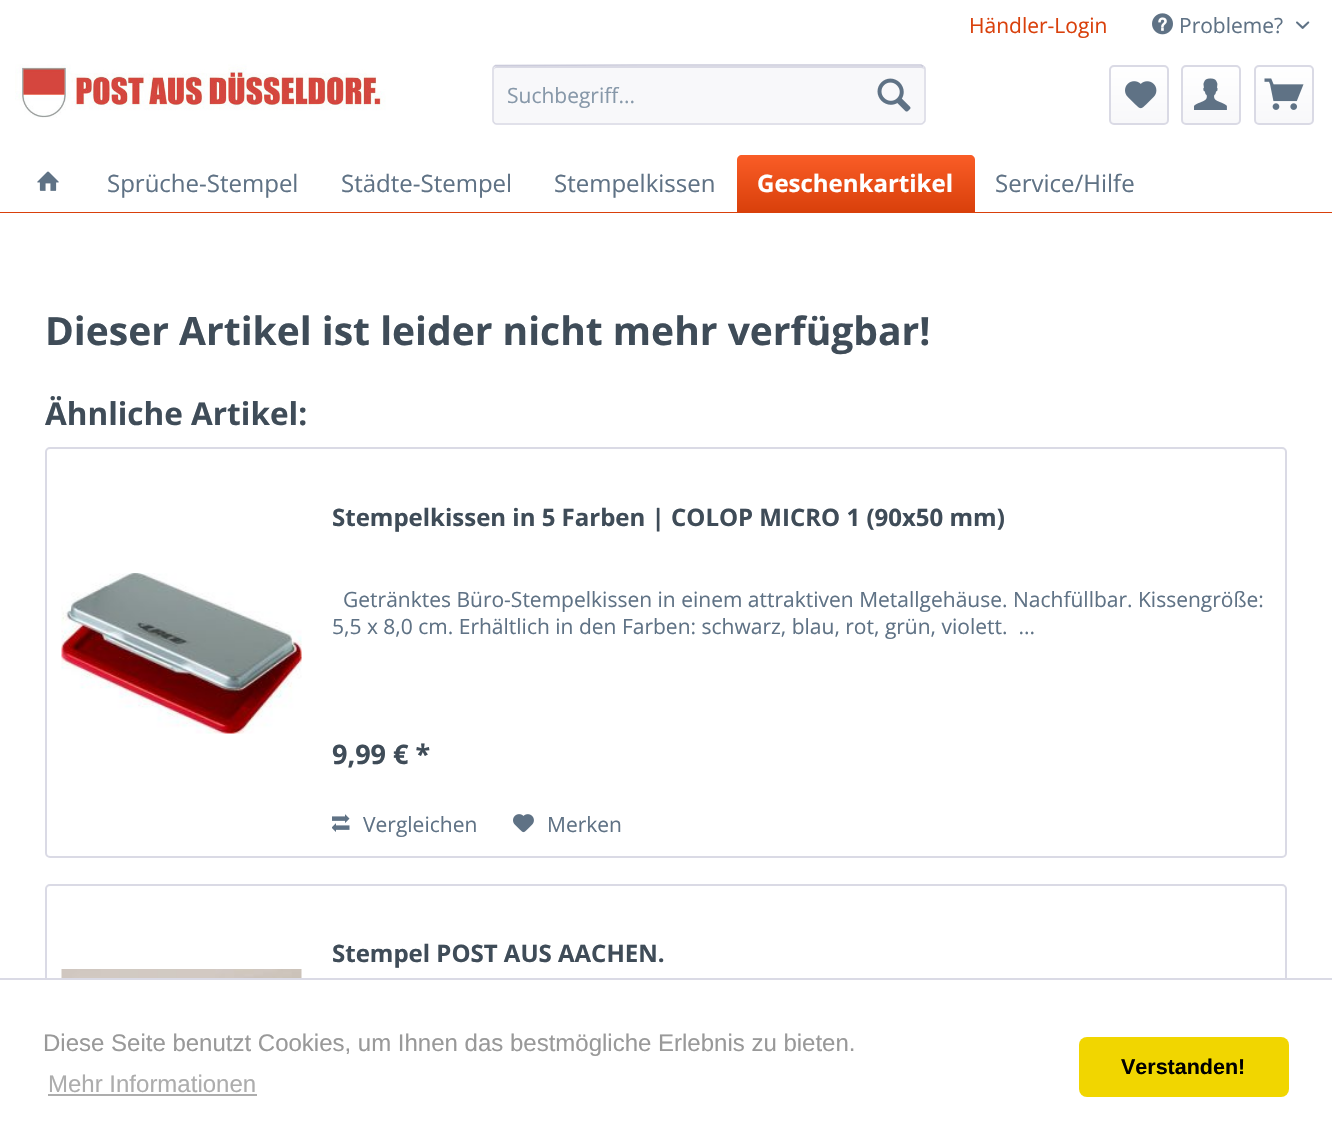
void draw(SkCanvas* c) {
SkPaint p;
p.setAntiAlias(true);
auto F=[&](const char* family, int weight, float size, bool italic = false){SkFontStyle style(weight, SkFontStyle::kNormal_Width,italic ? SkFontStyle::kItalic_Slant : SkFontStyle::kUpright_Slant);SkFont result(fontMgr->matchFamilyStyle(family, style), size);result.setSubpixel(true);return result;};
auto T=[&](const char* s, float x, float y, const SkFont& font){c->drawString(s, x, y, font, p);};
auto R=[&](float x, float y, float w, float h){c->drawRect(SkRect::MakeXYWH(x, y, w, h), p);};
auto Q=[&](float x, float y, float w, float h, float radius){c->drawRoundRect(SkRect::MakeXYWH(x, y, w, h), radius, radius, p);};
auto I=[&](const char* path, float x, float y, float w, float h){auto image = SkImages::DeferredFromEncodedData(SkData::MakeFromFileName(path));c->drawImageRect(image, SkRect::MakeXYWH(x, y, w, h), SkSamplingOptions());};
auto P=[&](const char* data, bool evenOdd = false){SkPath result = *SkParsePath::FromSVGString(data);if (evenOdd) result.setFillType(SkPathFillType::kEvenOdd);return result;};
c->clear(0xffffffff);
auto f1 = F("Open Sans",400,21);
p.setColor(0xffd9400b);
T("Händler-Login",969,33,f1);
I("1.png",1152,13,21,22);
p.setColor(0xff5f7285);
T("Probleme?",1179,33,f1);
I("2.png",1296,21,14,8);
I("3.png",15,64,371,54);
p.setColor(0xfff8f8fa);
Q(492,65,434,60,5);
p.setColor(0xffdadae5);
c->drawPath(P("M496 68h425c2 0 3 1 3 2c0-2-1-4-3-4h-424c-2 0-3 2-3 4c0-1 1-2 2-2z"),p);
p.setStroke(true);
p.setStrokeWidth(1.5);
p.setColor(0xffcbcbdb);
c->drawPath(P("M494 66.5l1.5-1l142.5-.5h283l2.5 1.5"),p);
p.setColor(0xffdadae5);
c->drawPath(P("M923.5 66.5c1 .5 1.5 1.5 1.5 2.5v51c0 1-.5 2-1.5 2.5c-.5 1-1.5 1.5-2.5 1.5h-424.5c-1 0-2-.5-2.5-1.5c-1-.5-1-1.5-1-2.5v-51c0-1 0-2 1-2.5"),p);
p.setStroke(false);
p.setColor(0xff8798a9);
T("Suchbegriff...",507,103,f1);
I("4.png",877,78,34,34);
{
const SkColor colors[] = {0xffffffff,0xfff8f8fa};
const float stops[] = {0,1};
const SkPoint ends[] = {{1139,66}, {1139,123}};
p.setShader(SkGradientShader::MakeLinear(ends, colors, stops, 2, SkTileMode::kClamp));
p.setAlpha(255);
}
Q(1110,66,57,57,3);
p.setStroke(true);
p.setStrokeWidth(2);
p.setShader(nullptr);
p.setColor(0xffdadae5);
c->drawRoundRect(SkRect::MakeXYWH(1110,66,58,58),4,4,p);
I("5.png",1125,81,32,28);
p.setStroke(false);
{
const SkColor colors[] = {0xffffffff,0xfff8f8fa};
const float stops[] = {0,1};
const SkPoint ends[] = {{1211,66}, {1211,123}};
p.setShader(SkGradientShader::MakeLinear(ends, colors, stops, 2, SkTileMode::kClamp));
p.setAlpha(255);
}
Q(1182,66,57,57,3);
p.setStroke(true);
p.setShader(nullptr);
p.setColor(0xffdadae5);
c->drawRoundRect(SkRect::MakeXYWH(1182,66,58,58),4,4,p);
I("6.png",1194,78,33,32);
p.setStroke(false);
{
const SkColor colors[] = {0xffffffff,0xfff8f8fa};
const float stops[] = {0,1};
const SkPoint ends[] = {{1284,66}, {1284,123}};
p.setShader(SkGradientShader::MakeLinear(ends, colors, stops, 2, SkTileMode::kClamp));
p.setAlpha(255);
}
Q(1256,66,57,57,3);
p.setStroke(true);
p.setShader(nullptr);
p.setColor(0xffdadae5);
c->drawRoundRect(SkRect::MakeXYWH(1255,66,58,58),4,4,p);
I("7.png",1264,78,40,32);
p.setStroke(false);
p.setColor(0xffd9400b);
R(0,212,1332,1);
I("8.png",37,171,22,20);
auto f2 = F("Open Sans",400,24);
p.setColor(0xff5f7285);
T("Sprüche-Stempel",107,192,f2);
T("Städte-Stempel",341,192,f2);
T("Stempelkissen",554,192,f2);
{
const SkColor colors[] = {0xfffa5d27,0xffd9400b};
const float stops[] = {0,1};
const SkPoint ends[] = {{856,154}, {856,212}};
p.setShader(SkGradientShader::MakeLinear(ends, colors, stops, 2, SkTileMode::kClamp));
p.setAlpha(255);
}
c->drawPath(P("M742 155h228c3 0 5 2 5 5v52h-238v-52c0-3 2-5 5-5z"),p);
auto f3 = F("Open Sans",700,24);
p.setShader(nullptr);
p.setColor(0xffffffff);
T("Geschenkartikel",757,192,f3);
p.setColor(0xff5f7285);
T("Service/Hilfe",995,192,f2);
auto f4 = F("Open Sans",700,39);
p.setColor(0xff3f4c58);
T("Dieser Artikel ist leider nicht mehr verfügbar!",45,345,f4);
auto f5 = F("Open Sans",700,31.5);
T("Ähnliche Artikel:",45,425,f5);
p.setStroke(true);
p.setColor(0xffdadae5);
c->drawRoundRect(SkRect::MakeXYWH(46,448,1240,409),4,4,p);
p.setStroke(false);
p.setColor(0xff3f4c58);
T("Stempelkissen in 5 Farben | COLOP MICRO 1 (90x50 mm)",332,526,f3);
I("9.png",61,573,241,161);
p.setColor(0xff5f7285);
T("Getränktes Büro-Stempelkissen in einem attraktiven Metallgehäuse. Nachfüllbar. Kissengröße:",343,607,f1);
T("5,5 x 8,0 cm. Erhältlich in den Farben: schwarz, blau, rot, grün, violett.  ...",332,634,f1);
auto f6 = F("Open Sans",700,27);
p.setColor(0xff3f4c58);
T("9,99 € *",332,764,f6);
I("10.png",332,814,18,18);
p.setColor(0xff5f7285);
T("Vergleichen",363,832,f1);
I("11.png",513,814,21,19);
T("Merken",547,832,f1);
p.setStroke(true);
p.setColor(0xffdadae5);
c->drawRoundRect(SkRect::MakeXYWH(46,885,1240,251),4,4,p);
p.setStroke(false);
p.setColor(0xff3f4c58);
T("Stempel POST AUS AACHEN.",332,962,f3);
I("12.png",61,969,241,9);
p.setColor(0xffffffff);
R(45,980,1242,150);
p.setColor(0xffdadae5);
R(0,978,1332,2);
auto f7 = F("Liberation Sans",400,24);
p.setColor(0xff999999);
T("Diese Seite benutzt Cookies, um Ihnen das bestmögliche Erlebnis zu bieten.",43,1051,f7);
p.setColor(0xffadadad);
T("Mehr Informationen",48,1092,f7);
R(48,1094,209,2);
p.setColor(0xfff1d600);
Q(1079,1037,210,60,8);
auto f8 = F("Liberation Sans",700,21.5);
p.setColor(0xff000000);
T("Verstanden!",1121,1074,f8);
}
